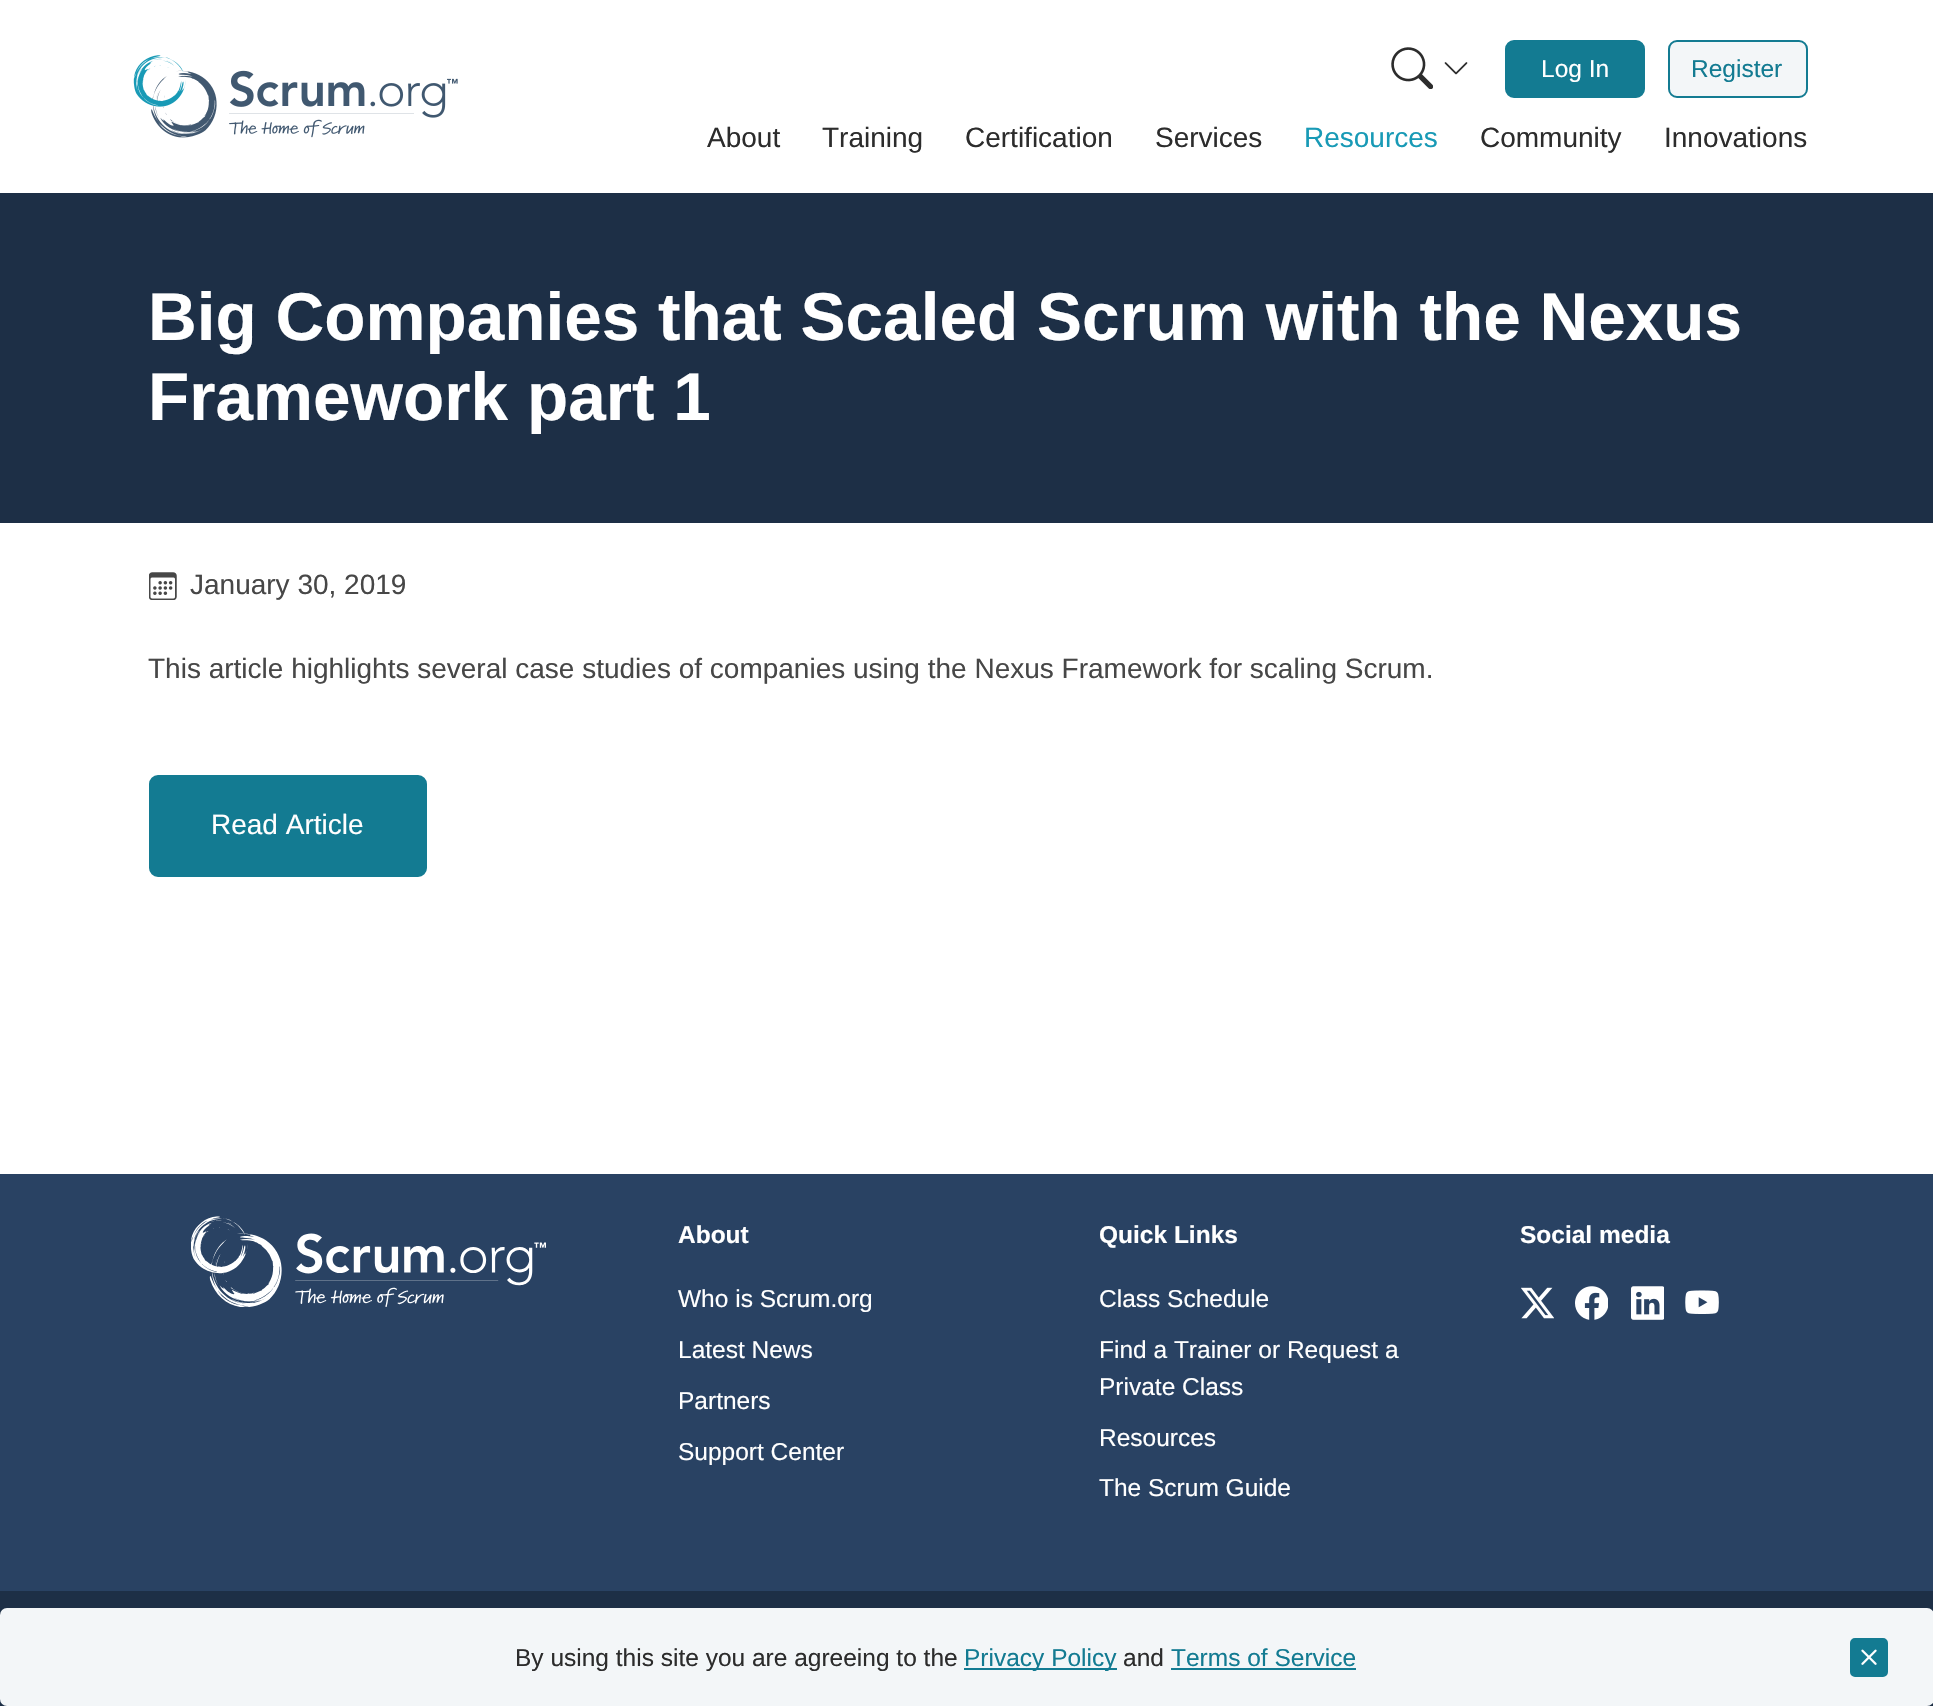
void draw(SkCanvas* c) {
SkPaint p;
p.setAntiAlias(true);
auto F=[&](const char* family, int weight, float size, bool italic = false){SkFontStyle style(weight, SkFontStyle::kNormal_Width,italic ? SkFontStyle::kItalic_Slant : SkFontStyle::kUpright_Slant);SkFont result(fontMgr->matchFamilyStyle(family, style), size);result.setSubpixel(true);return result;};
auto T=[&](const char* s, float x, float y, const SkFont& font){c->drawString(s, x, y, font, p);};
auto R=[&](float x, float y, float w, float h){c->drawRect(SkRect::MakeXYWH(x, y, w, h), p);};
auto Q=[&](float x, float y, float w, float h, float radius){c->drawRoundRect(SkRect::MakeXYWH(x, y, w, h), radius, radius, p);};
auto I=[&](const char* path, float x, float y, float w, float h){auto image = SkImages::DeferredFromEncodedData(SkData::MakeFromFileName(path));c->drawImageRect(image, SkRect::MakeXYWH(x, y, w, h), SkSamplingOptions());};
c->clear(0xffffffff);
I("1.png",133,55,325,83);
I("2.png",1391,47,42,42);
I("3.png",1444,62,24,13);
p.setColor(0xff137b92);
c->drawRoundRect(SkRect::MakeXYWH(1506,41,138,56),8,8,p);
p.setStroke(true);
p.setStrokeWidth(2);
c->drawRoundRect(SkRect::MakeXYWH(1506,41,138,56),8,8,p);
auto f1 = F("Liberation Sans",400,24.5);
p.setStroke(false);
p.setColor(0xffffffff);
T("Log In",1541,77,f1);
p.setColor(0xfff3f6f8);
c->drawRoundRect(SkRect::MakeXYWH(1669,41,138,56),8,8,p);
p.setStroke(true);
p.setColor(0xff137b92);
c->drawRoundRect(SkRect::MakeXYWH(1669,41,138,56),8,8,p);
p.setStroke(false);
T("Register",1691,77,f1);
auto f2 = F("Liberation Sans",400,28);
p.setColor(0xff2c2c2c);
T("About",707,147,f2);
T("Training",822,147,f2);
T("Certification",965,147,f2);
T("Services",1155,147,f2);
p.setColor(0xff189ab6);
T("Resources",1304,147,f2);
p.setColor(0xff2c2c2c);
T("Community",1480,147,f2);
T("Innovations",1664,147,f2);
p.setColor(0xff1d2f46);
R(0,193,1933,330);
auto f3 = F("Liberation Sans",700,67.5);
p.setColor(0xffffffff);
T("Big Companies that Scaled Scrum with the Nexus",148,340,f3);
T("Framework part 1",148,420,f3);
I("4.png",149,572,28,28);
p.setColor(0xff474747);
T("January 30, 2019",190,594,f2);
T("This article highlights several case studies of companies using the Nexus Framework for scaling Scrum.",148,678,f2);
p.setColor(0xff137b92);
c->drawRoundRect(SkRect::MakeXYWH(150,776,276,100),8,8,p);
p.setStroke(true);
c->drawRoundRect(SkRect::MakeXYWH(150,776,276,100),8,8,p);
p.setStroke(false);
p.setColor(0xffffffff);
T("Read Article",211,834,f2);
p.setColor(0xff1d2f46);
R(0,1591,1933,115);
p.setColor(0xfff3f6f8);
Q(0,1608,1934,98,7);
p.setColor(0xff2c2c2c);
T("By using this site you are agreeing to the",515,1666,f1);
p.setColor(0xff137b92);
R(964,1668,153,2);
T("Privacy Policy",964,1666,f1);
p.setColor(0xff2c2c2c);
T("and",1123,1666,f1);
p.setColor(0xff137b92);
T("Terms of Service",1171,1666,f1);
R(1171,1668,185,2);
c->drawRoundRect(SkRect::MakeXYWH(1851,1639,36,37),4,4,p);
p.setStroke(true);
c->drawRoundRect(SkRect::MakeXYWH(1851,1639,36,37),4,4,p);
I("5.png",1861,1649,16,16);
p.setStroke(false);
p.setColor(0xff294263);
R(0,1174,1933,417);
I("6.png",191,1216,355,91);
auto f4 = F("Liberation Sans",700,24.5);
p.setColor(0xffffffff);
T("About",678,1243,f4);
T("Who is Scrum.org",678,1307,f1);
T("Latest News",678,1358,f1);
T("Partners",678,1409,f1);
T("Support Center",678,1460,f1);
T("Quick Links",1099,1243,f4);
T("Class Schedule",1099,1307,f1);
T("Find a Trainer or Request a",1099,1358,f1);
T("Private Class",1099,1395,f1);
T("Resources",1099,1446,f1);
T("The Scrum Guide",1099,1496,f1);
T("Social media",1520,1243,f4);
I("7.png",1521,1287,33,32);
I("8.png",1575,1286,33,34);
I("9.png",1631,1286,33,34);
I("10.png",1685,1290,34,24);
}
